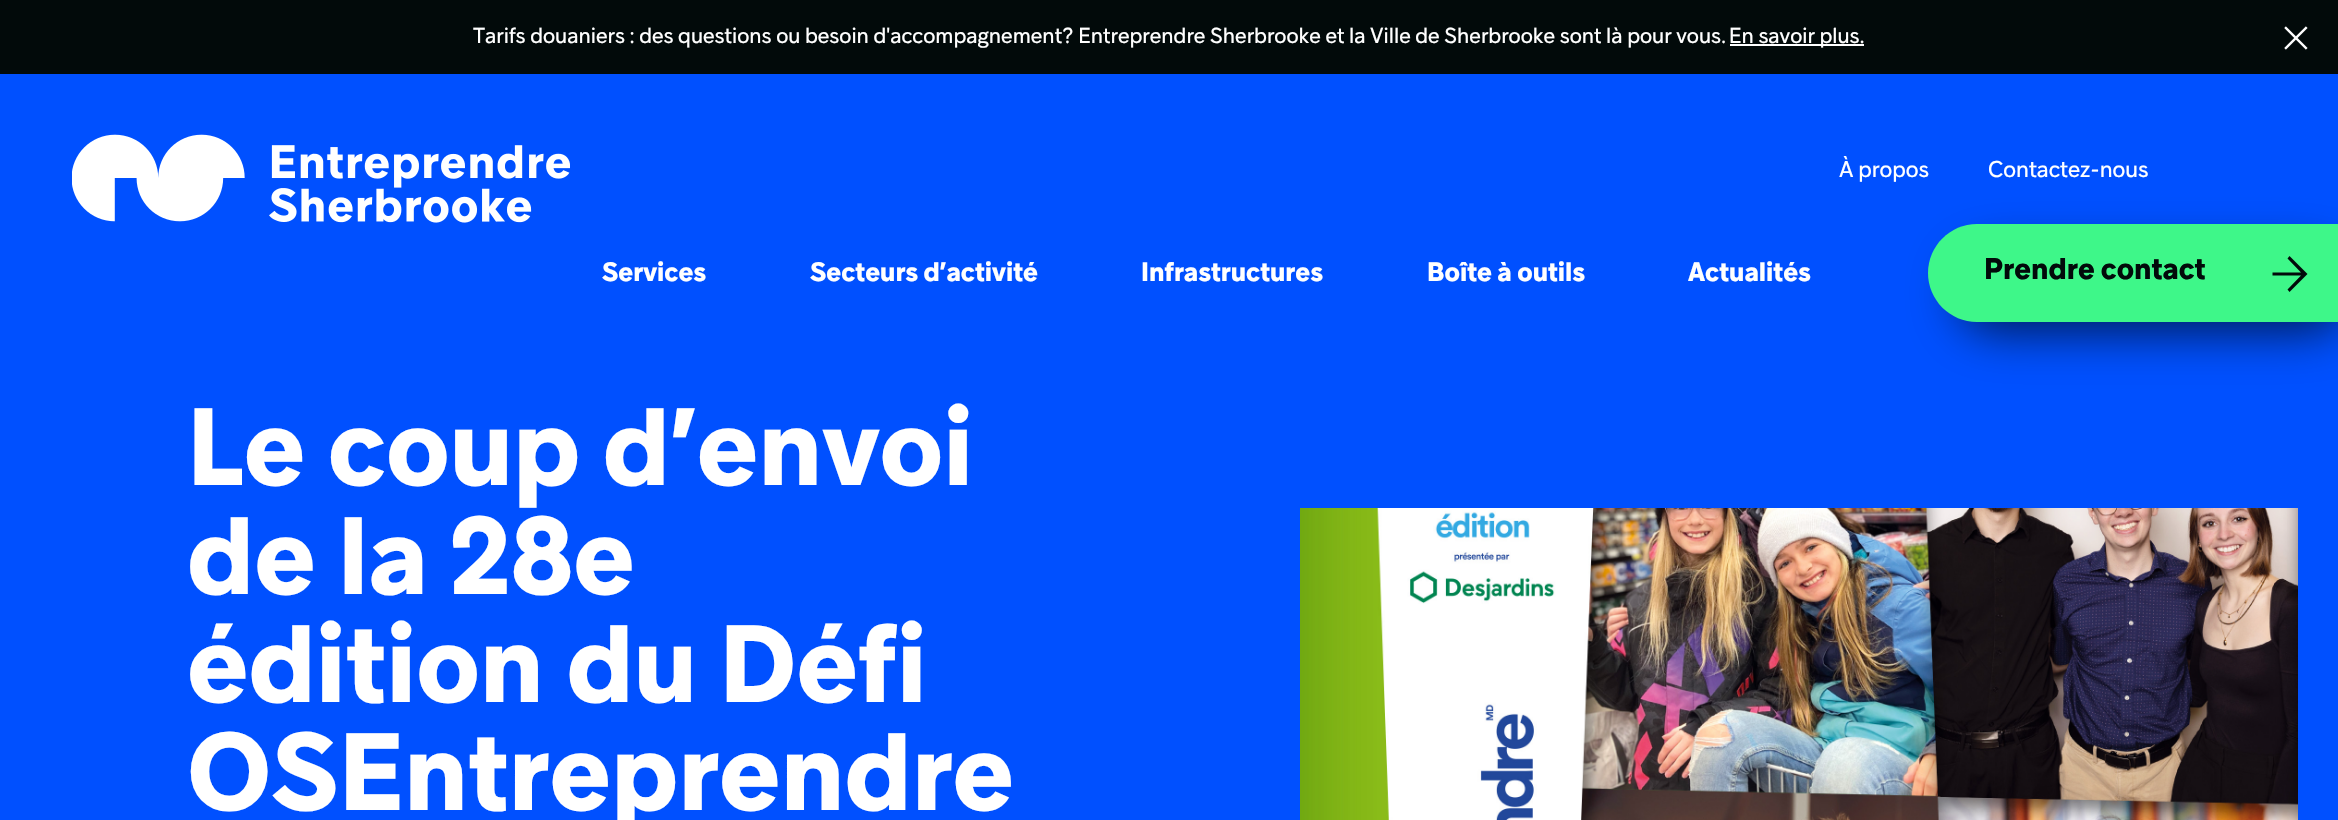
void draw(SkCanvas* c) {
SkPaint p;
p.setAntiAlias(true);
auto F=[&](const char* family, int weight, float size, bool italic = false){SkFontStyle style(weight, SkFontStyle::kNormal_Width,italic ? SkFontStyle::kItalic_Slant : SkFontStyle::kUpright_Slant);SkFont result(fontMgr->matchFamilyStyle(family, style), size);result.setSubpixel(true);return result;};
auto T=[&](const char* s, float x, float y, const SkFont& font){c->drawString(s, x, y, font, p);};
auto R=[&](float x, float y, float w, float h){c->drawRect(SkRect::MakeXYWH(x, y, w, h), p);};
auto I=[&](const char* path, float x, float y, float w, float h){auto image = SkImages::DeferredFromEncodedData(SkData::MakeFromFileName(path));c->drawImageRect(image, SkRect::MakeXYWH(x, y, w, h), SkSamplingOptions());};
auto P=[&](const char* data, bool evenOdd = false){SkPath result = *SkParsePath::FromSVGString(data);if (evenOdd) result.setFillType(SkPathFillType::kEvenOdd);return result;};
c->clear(0xff0050ff);
p.setColor(0xff020a0a);
R(0,0,2338,74);
auto f1 = F("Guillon",400,21.4);
p.setColor(0xffffffff);
T("Tarifs douaniers : des questions ou besoin d'accompagnement? Entreprendre Sherbrooke et la Ville de Sherbrooke sont là pour vous.",473,43,f1);
R(1730,44,134,2);
T("En savoir plus.",1729,43,f1);
I("1.png",2284,26,24,24);
I("2.png",72,134,498,89);
auto f2 = F("Guillon",400,22.5);
T("À propos",1839,177,f2);
T("Contactez-nous",1988,177,f2);
auto f3 = F("Guillon",700,26.25);
T("Services",602,281,f3);
T("Secteurs d’activité",810,281,f3);
T("Infrastructures",1141,281,f3);
T("Boîte à outils",1427,281,f3);
T("Actualités",1688,281,f3);
p.setColor(0xa8000000);
p.setMaskFilter(SkMaskFilter::MakeBlur(kNormal_SkBlurStyle, 24));
c->drawRoundRect(SkRect::MakeXYWH(1958,254,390,78),39,39,p);
p.setMaskFilter(nullptr);
p.setColor(0xff3ef789);
c->drawPath(P("M1977 224h361v98h-361c-27 0-49-22-49-49c0-27 22-49 49-49z"),p);
auto f4 = F("Guillon",700,29.5);
p.setColor(0xff020a0a);
T("Prendre contact",1984,279,f4);
c->drawPath(P("M2289.5 256l-2 2.5l13.5 14h-28.5v3h28.5l-13.5 14l2 2.5l18-18z"),p);
auto f5 = F("Guillon",700,108.25);
p.setColor(0xffffffff);
T("Le coup d’envoi",187,485,f5);
T("de la 28e",187,594,f5);
T("édition du Défi",187,702,f5);
T("OSEntreprendre",187,810,f5);
I("3.png",1300,508,998,312);
}
